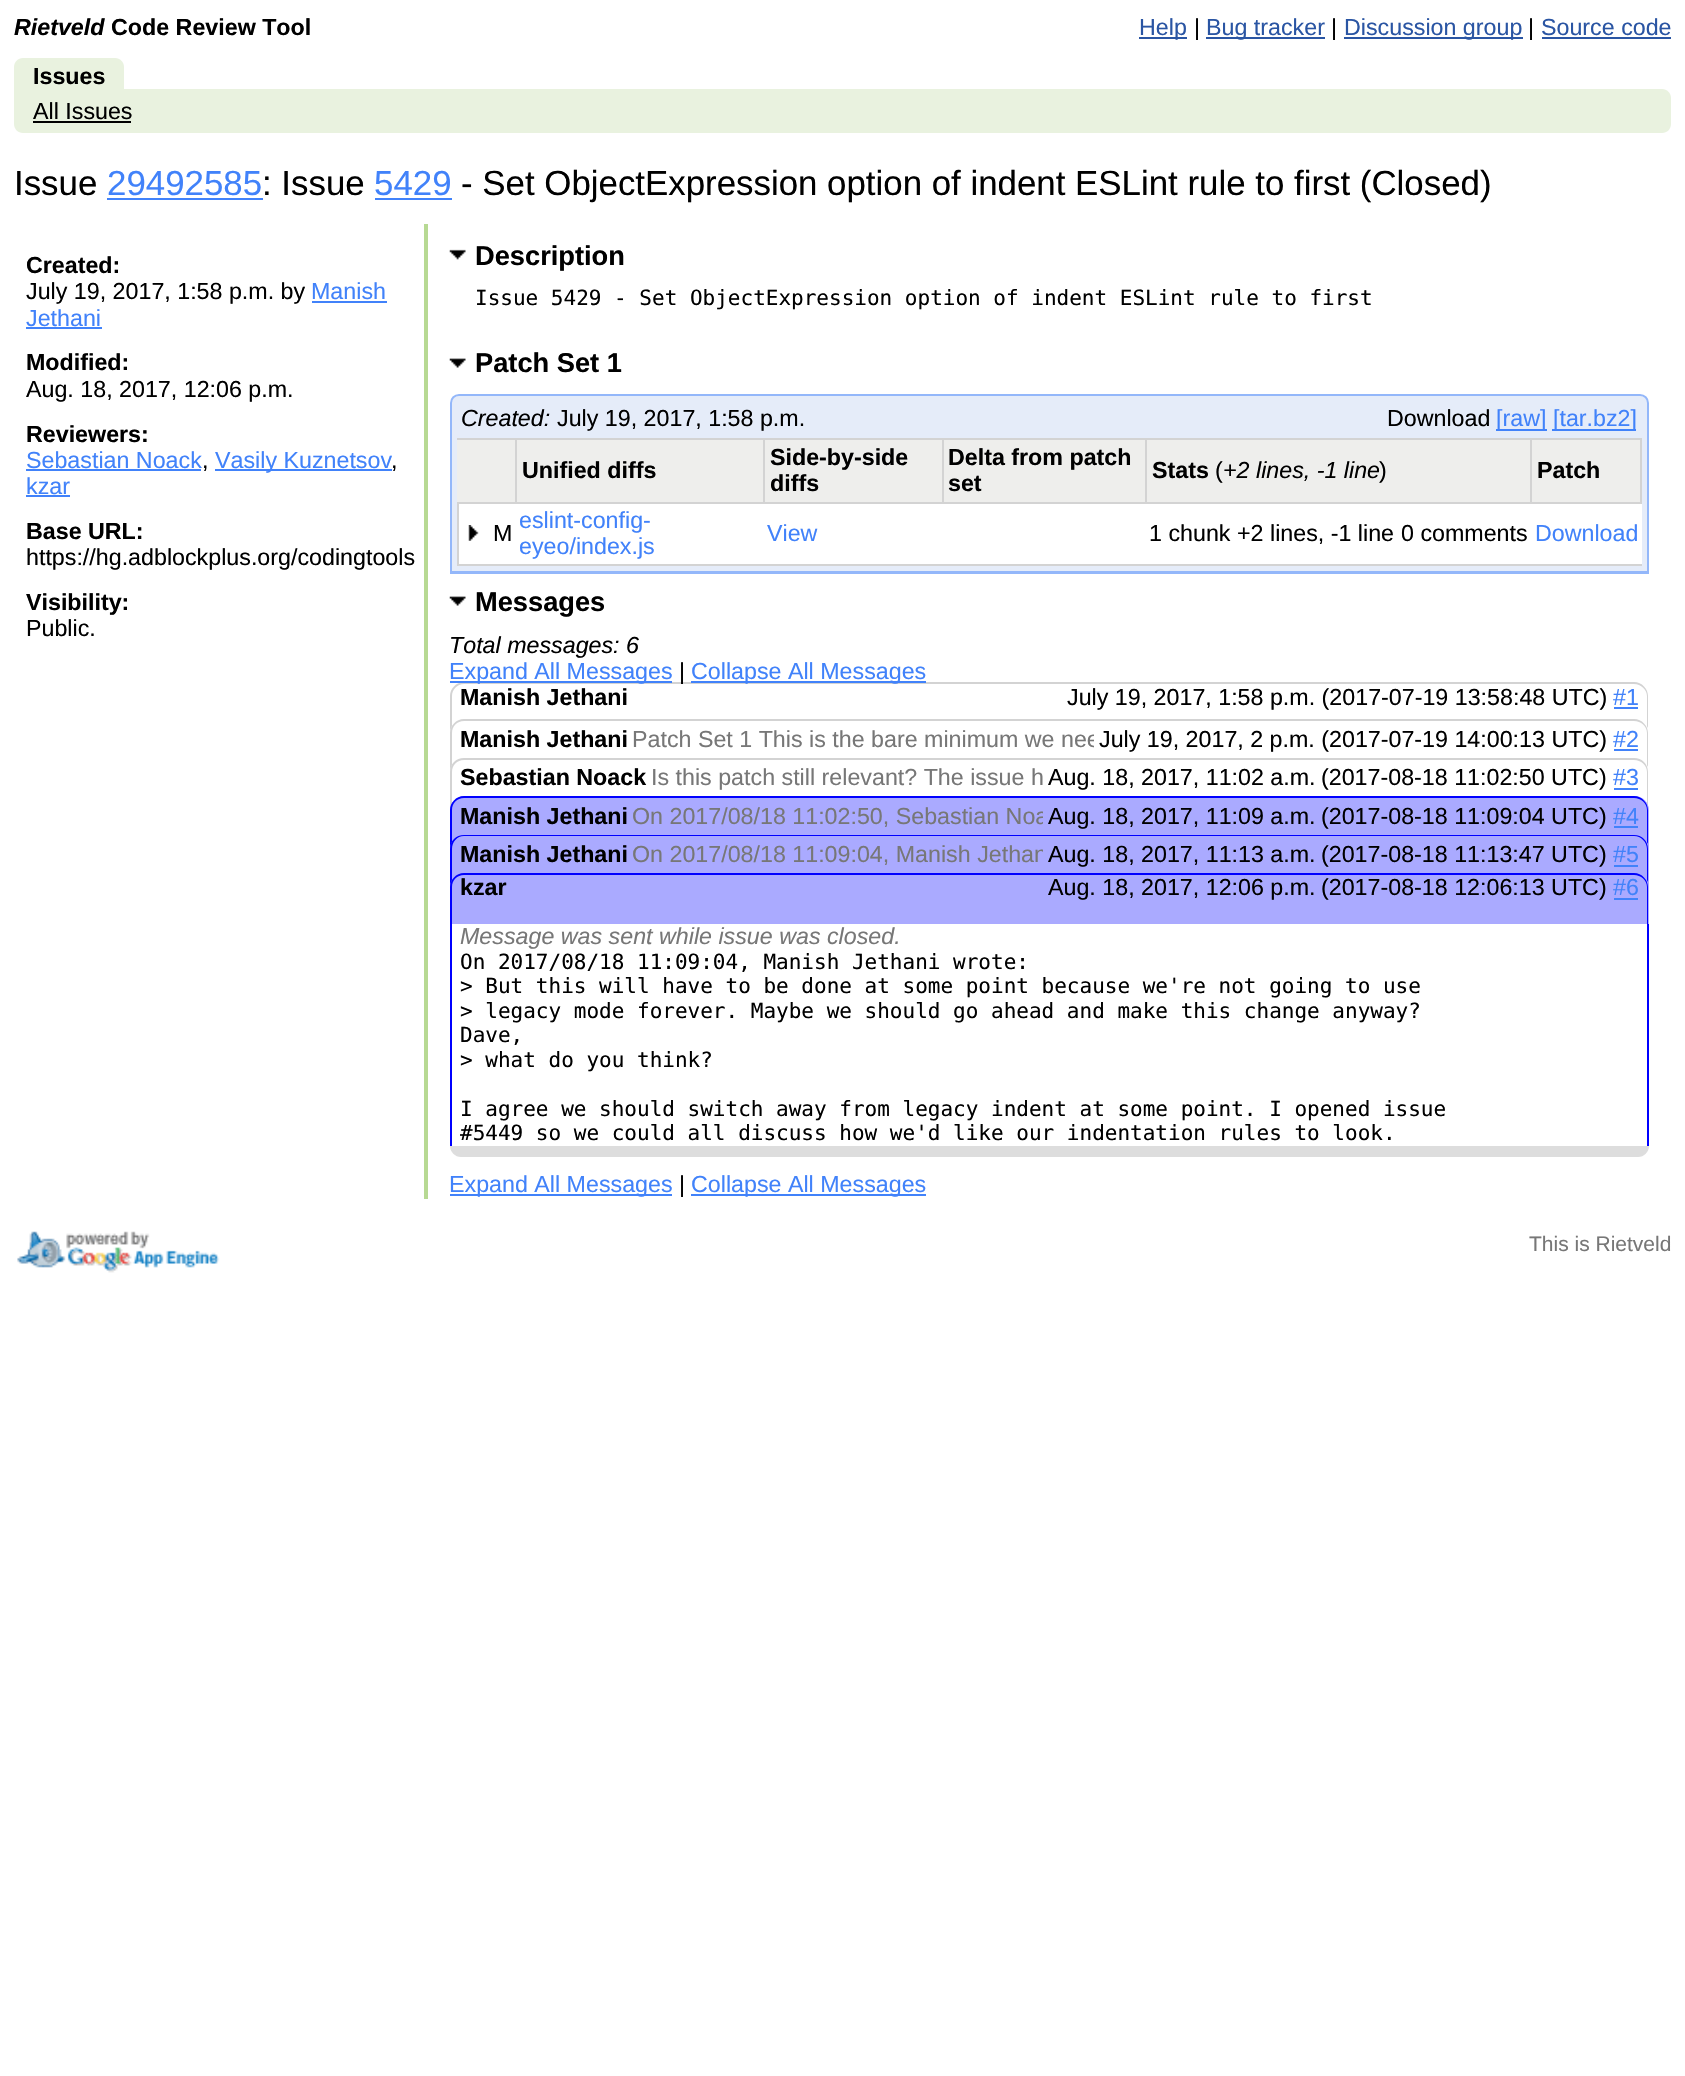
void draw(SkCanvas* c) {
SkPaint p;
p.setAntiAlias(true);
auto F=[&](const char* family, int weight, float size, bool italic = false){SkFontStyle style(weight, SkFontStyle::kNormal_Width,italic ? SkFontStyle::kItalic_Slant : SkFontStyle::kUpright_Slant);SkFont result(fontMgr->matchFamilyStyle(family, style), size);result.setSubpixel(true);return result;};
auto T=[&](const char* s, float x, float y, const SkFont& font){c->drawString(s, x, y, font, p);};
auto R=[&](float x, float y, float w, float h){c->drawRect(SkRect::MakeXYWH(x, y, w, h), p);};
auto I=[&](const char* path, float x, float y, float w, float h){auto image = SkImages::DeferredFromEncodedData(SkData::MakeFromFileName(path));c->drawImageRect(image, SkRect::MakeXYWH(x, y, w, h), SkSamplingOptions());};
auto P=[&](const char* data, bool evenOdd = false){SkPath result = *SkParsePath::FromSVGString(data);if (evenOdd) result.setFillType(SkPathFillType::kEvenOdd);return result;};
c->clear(0xffffffff);
auto f1 = F("Liberation Sans",700,23.25,true);
p.setColor(0xff000000);
T("Rietveld",14,35,f1);
auto f2 = F("Liberation Sans",700,23.25);
T("Code Review Tool",111,35,f2);
p.setColor(0xff2a55a3);
R(1139,37,48,2);
auto f3 = F("Liberation Sans",400,23.25);
T("Help",1139,35,f3);
p.setColor(0xff000000);
T("|",1194,35,f3);
p.setColor(0xff2a55a3);
R(1206,37,119,2);
T("Bug tracker",1206,35,f3);
p.setColor(0xff000000);
T("|",1331,35,f3);
p.setColor(0xff2a55a3);
R(1344,37,179,2);
T("Discussion group",1344,35,f3);
p.setColor(0xff000000);
T("|",1528,35,f3);
p.setColor(0xff2a55a3);
T("Source code",1541,35,f3);
R(1542,37,129,2);
p.setColor(0xffe9f2df);
c->drawPath(P("M23 58h92c5 0 9 4 9 9v22h-110v-22c0-5 4-9 9-9z"),p);
p.setColor(0xff000000);
T("Issues",33,84,f2);
p.setColor(0xffe9f2df);
c->drawPath(P("M14 89h1648c5 0 9 4 9 9v26c0 5-4 9-9 9h-1639c-5 0-9-4-9-9z"),p);
p.setColor(0xff000000);
T("All Issues",33,119,f3);
R(33,121,98,2);
auto f4 = F("Liberation Sans",400,34.85);
T("Issue",14,195,f4);
p.setColor(0xff4182fa);
T("29492585",107,195,f4);
R(107,198,156,2);
p.setColor(0xff000000);
T(": Issue",262,195,f4);
p.setColor(0xff4182fa);
T("5429",374,195,f4);
R(375,198,77,2);
p.setColor(0xff000000);
T("- Set ObjectExpression option of indent ESLint rule to first (Closed)",461,195,f4);
p.setColor(0xffb7d993);
R(424,224,4,975);
p.setColor(0xff000000);
T("Created:",26,273,f2);
T("July 19, 2017, 1:58 p.m. by",26,299,f3);
p.setColor(0xff4182fa);
T("Manish",311,299,f3);
R(312,301,75,2);
T("Jethani",26,326,f3);
R(26,327,76,2);
p.setColor(0xff000000);
T("Modified:",26,370,f2);
T("Aug. 18, 2017, 12:06 p.m.",26,397,f3);
T("Reviewers:",26,442,f2);
p.setColor(0xff4182fa);
T("Sebastian Noack",26,468,f3);
R(26,469,175,2);
p.setColor(0xff000000);
T(",",202,468,f3);
p.setColor(0xff4182fa);
R(215,469,177,2);
T("Vasily Kuznetsov",215,468,f3);
p.setColor(0xff000000);
T(",",391,468,f3);
p.setColor(0xff4182fa);
T("kzar",26,494,f3);
R(26,495,44,2);
p.setColor(0xff000000);
T("Base URL:",26,539,f2);
T("https://hg.adblockplus.org/codingtools",26,565,f3);
T("Visibility:",26,610,f2);
T("Public.",26,636,f3);
I("1.png",449,249,17,11);
auto f5 = F("Liberation Sans",700,27.25);
T("Description",475,265,f5);
auto f6 = F("DejaVu Sans Mono",400,21);
T("Issue 5429 - Set ObjectExpression option of indent ESLint rule to first",475,305,f6);
I("2.png",449,358,17,10);
T("Patch Set 1",475,372,f5);
p.setColor(0xffe5ecf9);
c->drawPath(P("M459 396h1181c4 0 7 3 7 7v168h-1195v-168c0-4 3-7 7-7z"),p);
p.setStroke(true);
p.setStrokeWidth(2);
p.setColor(0xff93b7fa);
c->drawPath(P("M459 395h1181c4.5 0 8 3.5 8 8v170h-1197v-170c0-4.5 3.5-8 8-8z"),p);
p.setStroke(false);
R(450,571,1199,1);
auto f7 = F("Liberation Sans",400,23.25,true);
p.setColor(0xff000000);
T("Created:",461,426,f7);
T("July 19, 2017, 1:58 p.m.",557,426,f3);
T("Download",1387,426,f3);
p.setColor(0xff4182fa);
R(1496,429,51,2);
T("[raw]",1496,426,f3);
R(1552,429,84,2);
T("[tar.bz2]",1553,426,f3);
p.setColor(0xffffffff);
R(459,504,1183,60);
p.setColor(0xffd3d3d3);
R(457,502,1185,2);
p.setColor(0xffeeeeec);
R(457,440,58,62);
p.setColor(0xffd3d3d3);
R(457,438,1185,2);
R(515,438,2,66);
p.setColor(0xffeeeeec);
R(517,440,246,62);
p.setColor(0xffd3d3d3);
R(763,438,2,66);
p.setColor(0xff000000);
T("Unified diffs",522,478,f2);
p.setColor(0xffeeeeec);
R(765,440,177,62);
p.setColor(0xffd3d3d3);
R(942,438,2,66);
p.setColor(0xff000000);
T("Side-by-side",770,465,f2);
T("diffs",770,491,f2);
p.setColor(0xffeeeeec);
R(944,440,201,62);
p.setColor(0xffd3d3d3);
R(1145,438,2,66);
p.setColor(0xff000000);
T("Delta from patch",948,465,f2);
T("set",948,491,f2);
p.setColor(0xffeeeeec);
R(1147,440,383,62);
p.setColor(0xffd3d3d3);
R(1530,438,2,66);
p.setColor(0xff000000);
T("Stats",1152,478,f2);
T("(",1215,478,f3);
T("+2 lines, -1 line",1223,478,f7);
T(")",1379,478,f3);
p.setColor(0xffeeeeec);
R(1532,440,108,62);
p.setColor(0xffd3d3d3);
R(1640,438,2,66);
p.setColor(0xff000000);
T("Patch",1537,478,f2);
p.setColor(0xffd3d3d3);
R(457,564,1185,2);
R(457,502,2,63);
I("3.png",468,525,11,16);
p.setColor(0xff000000);
T("M",493,541,f3);
p.setColor(0xff4182fa);
T("eslint-config-",519,528,f3);
T("eyeo/index.js",519,554,f3);
T("View",767,541,f3);
p.setColor(0xff000000);
T("1 chunk",1149,541,f3);
T("+2 lines, -1 line",1237,541,f3);
T("0 comments",1401,541,f3);
p.setColor(0xff4182fa);
T("Download",1535,541,f3);
I("2.png",449,596,17,10);
p.setColor(0xff000000);
T("Messages",475,611,f5);
T("Total messages: 6",449,653,f7);
p.setColor(0xffd3d3d3);
c->drawPath(P("M464 682h1170c8 0 14 7 14 14v37h-1198v-37c0-7 6-14 14-14zm0 2h1170c7 0 13 6 13 12v37h-1195v-37c0-6 5-12 12-12z",true),p);
p.setColor(0xff4182fa);
R(450,681,222,2);
T("Expand All Messages",449,679,f3);
p.setColor(0xff000000);
T("|",679,679,f3);
p.setColor(0xff4182fa);
R(691,681,235,2);
T("Collapse All Messages",691,679,f3);
p.setColor(0xff000000);
T("Manish Jethani",460,705,f2);
T("July 19, 2017, 1:58 p.m. (2017-07-19 13:58:48 UTC)",1067,705,f3);
p.setColor(0xff4182fa);
T("#1",1613,705,f3);
R(1614,707,24,2);
p.setColor(0xffffffff);
c->drawPath(P("M464 719h1171c7.5 0 14 6.5 14 14v39h-1199v-39c0-7.5 6.5-14 14-14z"),p);
p.setColor(0xffd3d3d3);
c->drawPath(P("M464 719h1170c8 0 14 7 14 14v39h-1198v-39c0-7 6-14 14-14zm0 2h1170c7 0 13 5 13 12v39h-1195v-39c0-7 5-12 12-12z",true),p);
p.setColor(0xff000000);
T("Manish Jethani",460,747,f2);
c->save();
c->clipRect(SkRect::MakeXYWH(627,721,467,37));
p.setColor(0xff777777);
T("Patch Set 1 This is the bare minimum we nee",632,747,f3);
c->restore();
p.setColor(0xff000000);
T("July 19, 2017, 2 p.m. (2017-07-19 14:00:13 UTC)",1099,747,f3);
p.setColor(0xff4182fa);
T("#2",1613,747,f3);
R(1614,749,24,2);
p.setColor(0xffffffff);
c->drawPath(P("M464 758h1171c7.5 0 14 6.5 14 14v38h-1199v-38c0-7.5 6.5-14 14-14z"),p);
p.setColor(0xffd3d3d3);
c->drawPath(P("M464 758h1170c8 0 14 6 14 14v38h-1198v-38c0-8 6-14 14-14zm0 2h1170c7 0 13 5 13 12v38h-1195v-38c0-7 5-12 12-12z",true),p);
p.setColor(0xff000000);
T("Sebastian Noack",460,785,f2);
p.setColor(0xff777777);
T("Is this patch still relevant? The issue h",651,785,f3);
p.setColor(0xff000000);
T("Aug. 18, 2017, 11:02 a.m.",1048,785,f3);
T("(2017-08-18 11:02:50 UTC)",1321,785,f3);
p.setColor(0xff4182fa);
T("#3",1613,785,f3);
R(1614,788,24,2);
p.setColor(0xffaaaaff);
c->drawPath(P("M464 796h1171c7.5 0 14 6.5 14 14v39h-1199v-39c0-7.5 6.5-14 14-14z"),p);
p.setColor(0xff0000ff);
c->drawPath(P("M464 796h1170c8 0 14 7 14 14v39h-1198v-39c0-7 6-14 14-14zm0 2h1170c7 0 13 5 13 12v39h-1195v-39c0-7 5-12 12-12z",true),p);
p.setColor(0xff000000);
T("Manish Jethani",460,824,f2);
c->save();
c->clipRect(SkRect::MakeXYWH(627,798,416,37));
p.setColor(0xff777777);
T("On 2017/08/18 11:02:50, Sebastian Noa",632,824,f3);
c->restore();
p.setColor(0xff000000);
T("Aug. 18, 2017, 11:09 a.m.",1048,824,f3);
T("(2017-08-18 11:09:04 UTC)",1321,824,f3);
p.setColor(0xff4182fa);
T("#4",1613,824,f3);
R(1614,826,24,2);
p.setColor(0xffaaaaff);
c->drawPath(P("M464 835h1171c7.5 0 14 6.5 14 14v38h-1199v-38c0-7.5 6.5-14 14-14z"),p);
p.setColor(0xff0000ff);
c->drawPath(P("M464 835h1170c8 0 14 6 14 14v38h-1198v-38c0-8 6-14 14-14zm0 1h1170c7 0 13 6 13 13v38h-1195v-38c0-7 5-13 12-13z",true),p);
p.setColor(0xff000000);
T("Manish Jethani",460,862,f2);
c->save();
c->clipRect(SkRect::MakeXYWH(627,837,416,36));
p.setColor(0xff777777);
T("On 2017/08/18 11:09:04, Manish Jethan",632,862,f3);
c->restore();
p.setColor(0xff000000);
T("Aug. 18, 2017, 11:13 a.m.",1048,862,f3);
T("(2017-08-18 11:13:47 UTC)",1321,862,f3);
p.setColor(0xff4182fa);
T("#5",1613,862,f3);
R(1614,865,24,2);
p.setColor(0xffaaaaff);
c->drawPath(P("M464 873h1171c7.5 0 14 6.5 14 14v37h-1199v-37c0-7.5 6.5-14 14-14z"),p);
p.setColor(0xff0000ff);
c->drawPath(P("M464 873h1170c8 0 14 7 14 14v37h-1198v-37c0-7 6-14 14-14zm0 2h1170c7 0 13 5 13 12v37h-1195v-37c0-7 5-12 12-12z",true),p);
p.setColor(0xff000000);
T("kzar",460,895,f2);
T("Aug. 18, 2017, 12:06 p.m.",1048,895,f3);
T("(2017-08-18 12:06:13 UTC)",1321,895,f3);
p.setColor(0xff4182fa);
T("#6",1613,895,f3);
R(1614,898,24,2);
p.setColor(0xff0000ff);
R(1647,924,2,222);
R(450,924,2,222);
p.setColor(0xff777777);
T("Message was sent while issue was closed.",460,944,f7);
p.setColor(0xff000000);
T("On 2017/08/18 11:09:04, Manish Jethani wrote:",460,969,f6);
T("> But this will have to be done at some point because we're not going to use",460,993,f6);
T("> legacy mode forever. Maybe we should go ahead and make this change anyway?",460,1018,f6);
T("Dave,",460,1042,f6);
T("> what do you think?",460,1067,f6);
T("I agree we should switch away from legacy indent at some point. I opened issue",460,1116,f6);
T("#5449 so we could all discuss how we'd like our indentation rules to look.",460,1140,f6);
p.setColor(0xffdddddd);
c->drawPath(P("M450 1146h1199c0 6-5 11-11 11h-1177c-6 0-11-5-11-11z"),p);
p.setColor(0xff4182fa);
R(450,1194,222,2);
T("Expand All Messages",449,1192,f3);
p.setColor(0xff000000);
T("|",679,1192,f3);
p.setColor(0xff4182fa);
R(691,1194,235,2);
T("Collapse All Messages",691,1192,f3);
I("4.png",17,1231,203,42);
auto f8 = F("Liberation Sans",400,21);
p.setColor(0xff777777);
T("This is Rietveld",1529,1251,f8);
}
